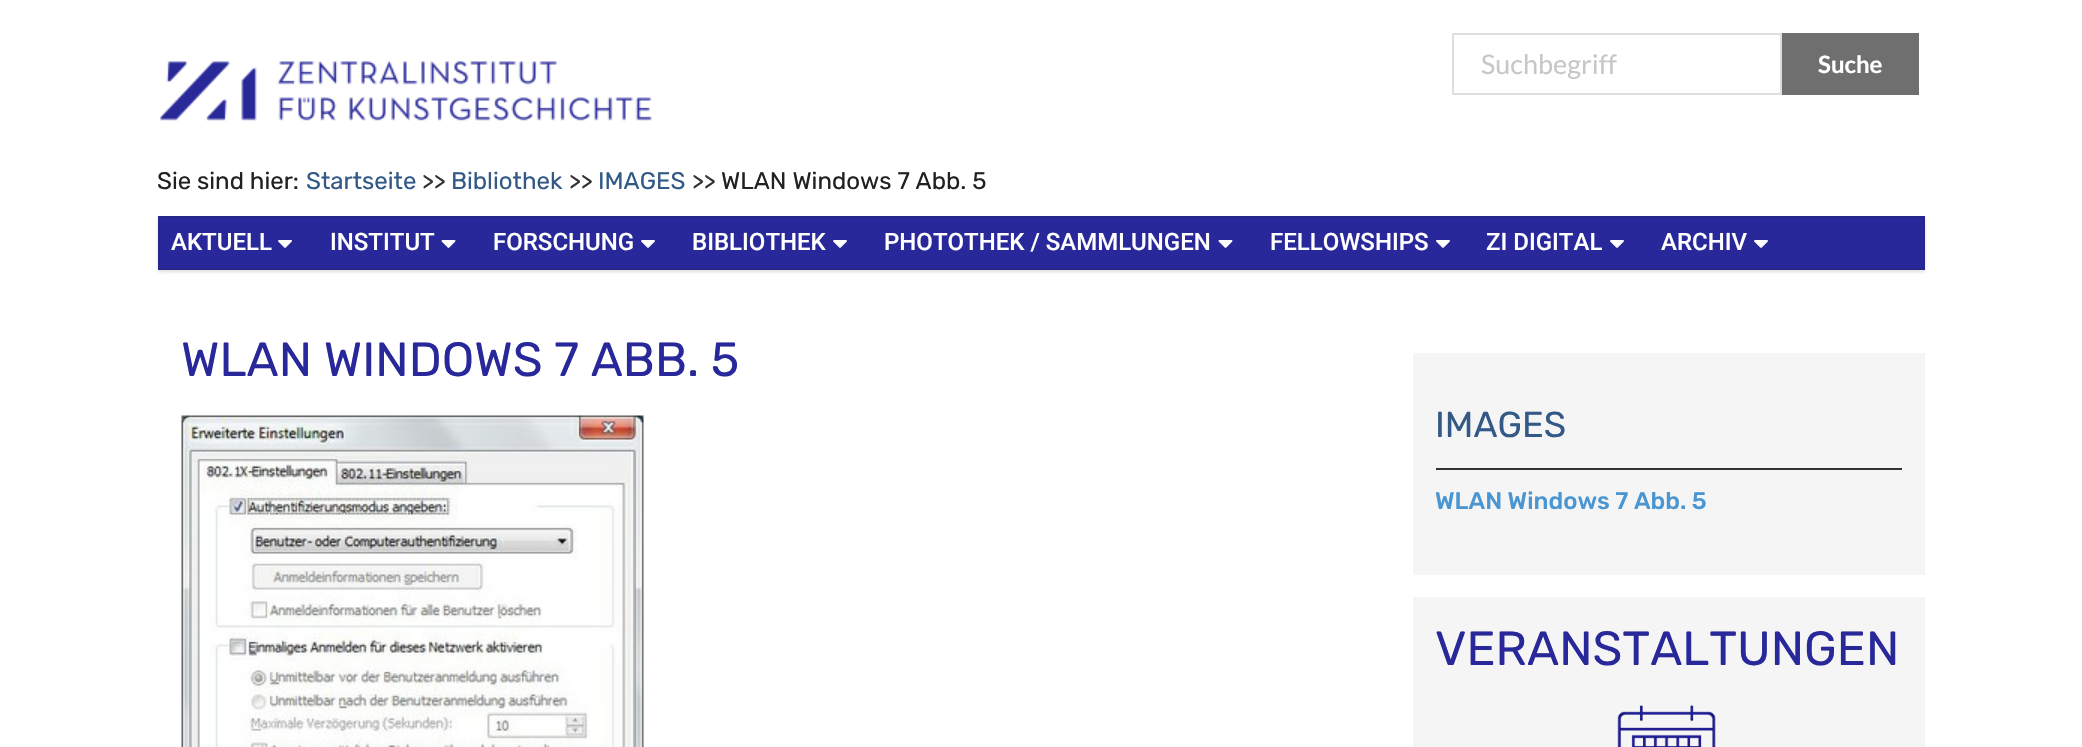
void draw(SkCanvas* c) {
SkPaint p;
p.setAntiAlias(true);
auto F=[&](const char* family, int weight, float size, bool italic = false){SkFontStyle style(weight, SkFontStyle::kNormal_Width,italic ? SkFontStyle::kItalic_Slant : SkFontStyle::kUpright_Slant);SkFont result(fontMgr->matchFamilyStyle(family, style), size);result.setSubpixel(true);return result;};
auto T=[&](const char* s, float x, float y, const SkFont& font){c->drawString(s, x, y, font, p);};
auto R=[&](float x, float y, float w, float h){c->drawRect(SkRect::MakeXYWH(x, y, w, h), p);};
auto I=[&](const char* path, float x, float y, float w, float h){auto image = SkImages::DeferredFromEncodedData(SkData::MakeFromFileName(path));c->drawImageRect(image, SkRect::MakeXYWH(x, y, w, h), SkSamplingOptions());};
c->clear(0xffffffff);
I("1.png",160,61,492,60);
p.setStroke(true);
p.setStrokeWidth(2);
p.setColor(0xffdedede);
c->drawRect(SkRect::MakeXYWH(1453,34,328,60),p);
auto f1 = F("Lato",400,27);
p.setStroke(false);
p.setColor(0xffc7c7c7);
T("Suchbegriff",1481,74,f1);
p.setColor(0xff706f6f);
R(1782,33,137,62);
auto f2 = F("Lato",700,24);
p.setColor(0xffffffff);
T("Suche",1818,73,f2);
auto f3 = F("Rubik",400,24);
p.setColor(0xff212121);
T("Sie sind hier:",157,189,f3);
p.setColor(0xff335986);
T("Startseite",306,189,f3);
p.setColor(0xff333333);
T(">>",422,189,f3);
p.setColor(0xff335986);
T("Bibliothek",451,189,f3);
p.setColor(0xff333333);
T(">>",569,189,f3);
p.setColor(0xff335986);
T("IMAGES",598,189,f3);
p.setColor(0xff333333);
T(">>",692,189,f3);
p.setColor(0xff212121);
T("WLAN Windows 7 Abb. 5",721,189,f3);
p.setColor(0x26222426);
p.setMaskFilter(SkMaskFilter::MakeBlur(kNormal_SkBlurStyle, 1.5));
c->drawRect(SkRect::MakeXYWH(158,218,1767,54),p);
p.setMaskFilter(nullptr);
p.setColor(0xff28289a);
c->drawRect(SkRect::MakeXYWH(159,217,1765,52),p);
p.setStroke(true);
p.setColor(0xff272789);
c->drawRect(SkRect::MakeXYWH(159,217,1765,52),p);
auto f4 = F("Roboto",500,24);
p.setStroke(false);
p.setColor(0xffffffff);
T("AKTUELL",171,250,f4);
I("2.png",278,240,14,8);
T("INSTITUT",330,250,f4);
I("3.png",441,240,15,8);
T("FORSCHUNG",493,250,f4);
I("2.png",641,240,14,8);
T("BIBLIOTHEK",692,250,f4);
I("2.png",833,240,14,8);
T("PHOTOTHEK / SAMMLUNGEN",884,250,f4);
I("3.png",1218,240,15,8);
T("FELLOWSHIPS",1270,250,f4);
I("2.png",1436,240,14,8);
T("ZI DIGITAL",1486,250,f4);
I("2.png",1610,240,14,8);
T("ARCHIV",1661,250,f4);
I("2.png",1754,240,14,8);
auto f5 = F("Rubik",400,48);
p.setColor(0xff28289a);
T("WLAN WINDOWS 7 ABB. 5",181,376,f5);
I("4.png",181,415,463,332);
p.setColor(0xfff5f5f5);
R(1413,353,512,222);
p.setColor(0xff333333);
R(1436,468,466,2);
auto f6 = F("Rubik",400,36);
p.setColor(0xff335986);
T("IMAGES",1435,437,f6);
auto f7 = F("Rubik",500,24);
p.setColor(0xff4a96d2);
T("WLAN Windows 7 Abb. 5",1435,509,f7);
p.setColor(0xfff5f5f5);
R(1413,597,512,150);
p.setColor(0xff28289a);
T("VERANSTALTUNGEN",1435,665,f5);
I("5.png",1617,705,99,42);
}
